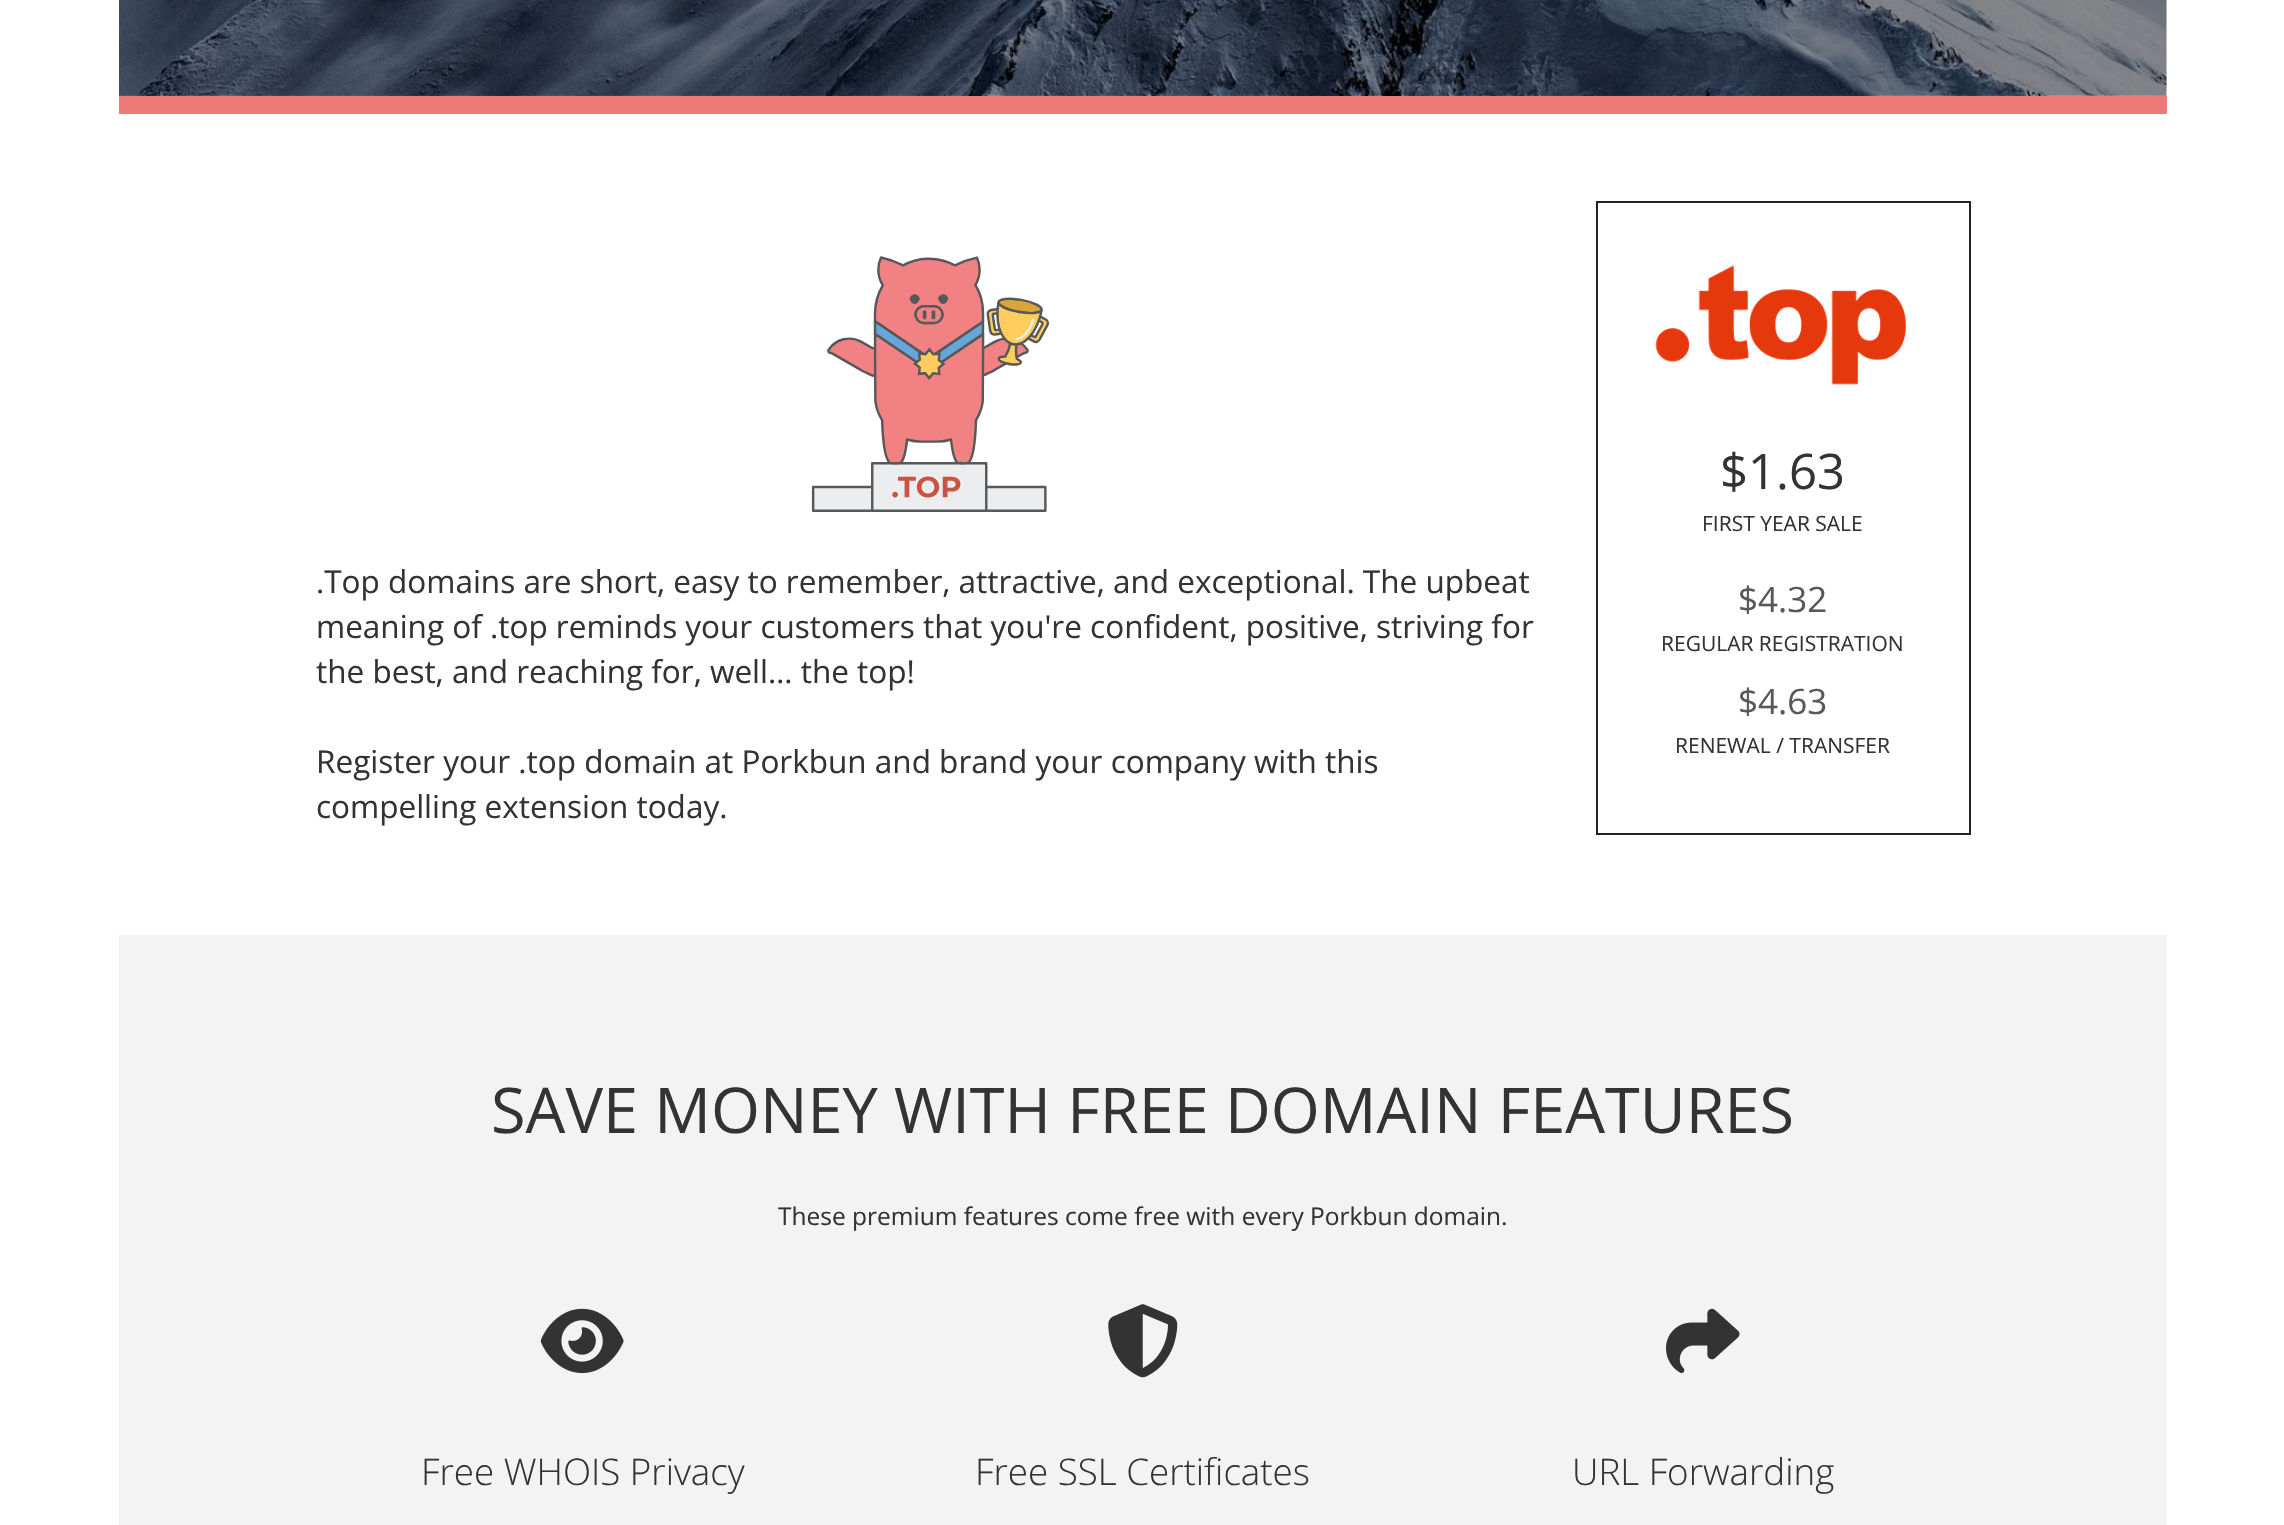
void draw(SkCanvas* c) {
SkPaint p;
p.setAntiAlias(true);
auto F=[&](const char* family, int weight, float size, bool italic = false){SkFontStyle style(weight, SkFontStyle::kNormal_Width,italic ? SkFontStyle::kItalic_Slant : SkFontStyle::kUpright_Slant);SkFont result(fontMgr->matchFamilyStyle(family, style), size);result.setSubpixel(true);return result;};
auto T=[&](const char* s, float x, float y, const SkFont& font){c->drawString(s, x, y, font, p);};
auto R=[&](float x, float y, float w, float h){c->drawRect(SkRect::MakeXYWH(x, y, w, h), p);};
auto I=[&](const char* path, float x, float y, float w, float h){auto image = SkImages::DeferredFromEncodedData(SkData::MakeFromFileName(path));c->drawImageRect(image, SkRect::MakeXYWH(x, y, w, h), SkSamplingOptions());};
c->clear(0xffffffff);
I("1.png",119,0,2048,96);
p.setColor(0xffef7878);
R(119,96,2048,18);
I("2.png",811,256,238,256);
auto f1 = F("Open Sans",400,31.5);
p.setColor(0xff333333);
T(".Top domains are short, easy to remember, attractive, and exceptional. The upbeat",316,593,f1);
T("meaning of .top reminds your customers that you're confident, positive, striving for",316,638,f1);
T("the best, and reaching for, well… the top!",316,683,f1);
T("Register your .top domain at Porkbun and brand your company with this",316,773,f1);
T("compelling extension today.",316,818,f1);
p.setStroke(true);
p.setStrokeWidth(2);
p.setColor(0xff222222);
c->drawRect(SkRect::MakeXYWH(1597,202,373,632),p);
I("3.png",1655,265,252,120);
auto f2 = F("Open Sans",400,49);
p.setStroke(false);
p.setColor(0xff333333);
T("$1.63",1720,489,f2);
auto f3 = F("Open Sans",400,21);
T("FIRST YEAR SALE",1702,531,f3);
auto f4 = F("Open Sans",400,35);
p.setColor(0xff595959);
T("$4.32",1738,612,f4);
p.setColor(0xff333333);
T("REGULAR REGISTRATION",1661,651,f3);
p.setColor(0xff595959);
T("$4.63",1738,714,f4);
p.setColor(0xff333333);
T("RENEWAL / TRANSFER",1675,753,f3);
p.setColor(0xfff3f3f3);
R(119,935,2048,590);
auto f5 = F("Open Sans",400,63);
p.setColor(0xff333333);
T("SAVE MONEY WITH FREE DOMAIN FEATURES",491,1133,f5);
auto f6 = F("Open Sans",400,24.5);
T("These premium features come free with every Porkbun domain.",778,1225,f6);
I("4.png",540,1308,84,66);
auto f7 = F("Open Sans",300,36.75);
T("Free WHOIS Privacy",421,1485,f7);
I("5.png",1108,1304,70,74);
T("Free SSL Certificates",975,1485,f7);
I("6.png",1666,1308,74,66);
T("URL Forwarding",1572,1485,f7);
}
